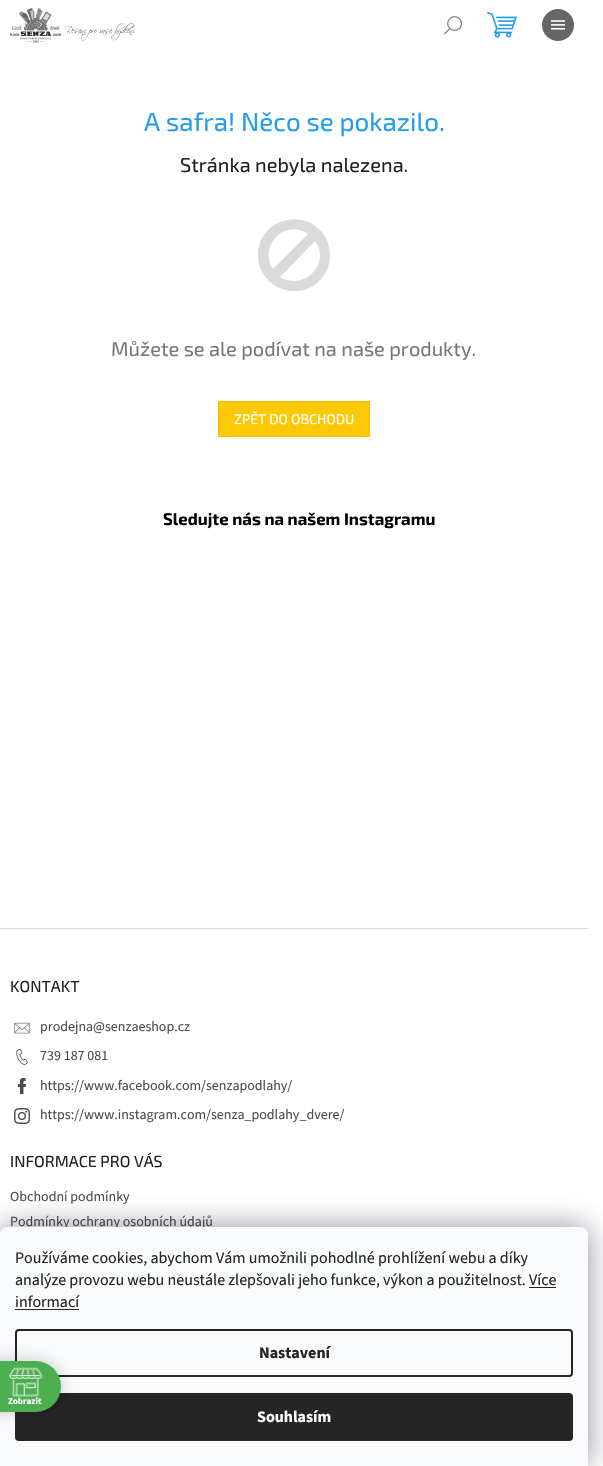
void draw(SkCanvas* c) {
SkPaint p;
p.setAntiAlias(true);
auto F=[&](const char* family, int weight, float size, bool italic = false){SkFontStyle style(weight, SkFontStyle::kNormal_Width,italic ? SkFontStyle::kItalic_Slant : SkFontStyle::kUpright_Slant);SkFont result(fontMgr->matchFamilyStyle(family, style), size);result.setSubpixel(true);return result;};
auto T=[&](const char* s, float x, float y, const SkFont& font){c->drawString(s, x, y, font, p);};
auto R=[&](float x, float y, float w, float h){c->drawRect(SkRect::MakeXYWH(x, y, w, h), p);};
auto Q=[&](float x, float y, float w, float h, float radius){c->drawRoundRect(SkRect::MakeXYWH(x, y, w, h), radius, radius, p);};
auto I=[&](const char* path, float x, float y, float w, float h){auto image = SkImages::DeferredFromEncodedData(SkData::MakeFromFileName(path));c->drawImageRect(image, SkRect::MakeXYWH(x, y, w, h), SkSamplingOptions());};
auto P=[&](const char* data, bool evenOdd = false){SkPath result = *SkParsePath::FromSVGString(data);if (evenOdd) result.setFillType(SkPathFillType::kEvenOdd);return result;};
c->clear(0xffffffff);
I("1.png",10,8,125,35);
I("2.png",487,12,30,26);
I("3.png",444,16,18,19);
p.setColor(0xff666666);
c->drawCircle(558,25,16,p);
I("4.png",551,20,14,10);
auto f1 = F("Exo 2",400,26);
p.setColor(0xff239ceb);
T("A safra! Něco se pokazilo.",144,131,f1);
auto f2 = F("Exo 2",400,20);
p.setColor(0xff1f1f1f);
T("Stránka nebyla nalezena.",180,172,f2);
p.setColor(0xffdadada);
c->drawPath(P("M320 255c0-5-2-10-5-14l-35 36c17 11 40-2 40-22zm-47 14l35-35c-23-16-50 12-35 35zm57-14c0 7-2 14-6 20c-20 30-66 15-66-20c0-35 46-49 66-20c4 6 6 13 6 20z"),p);
p.setColor(0xff767676);
T("Můžete se ale podívat na naše produkty.",111,356,f2);
p.setColor(0xffffc807);
c->drawRect(SkRect::MakeXYWH(218.5,401.5,151,35),p);
p.setStroke(true);
p.setStrokeWidth(1);
p.setColor(0xffffbb00);
c->drawRect(SkRect::MakeXYWH(218.5,401.5,151,35),p);
auto f3 = F("Exo 2",400,14);
p.setStroke(false);
p.setColor(0xffffffff);
T("ZPĚT DO OBCHODU",234,424,f3);
auto f4 = F("Exo 2",700,16.75);
p.setColor(0xff000000);
T("Sledujte nás na našem Instagramu",163,525,f4);
p.setColor(0xffdadada);
R(0,928,588,1);
auto f5 = F("Exo 2",400,16);
p.setColor(0xff1f1f1f);
T("KONTAKT",10,992,f5);
I("5.png",14,1022,16,12);
auto f6 = F("Source Sans 3",400,14);
p.setColor(0xff4d4d4d);
T("prodejna@senzaeshop.cz",40,1031,f6);
I("6.png",16,1049,12,16);
T("739 187 081",40,1060,f6);
I("7.png",17,1078,10,16);
T("https://www.facebook.com/senzapodlahy/",40,1090,f6);
I("8.png",14,1108,16,16);
T("https://www.instagram.com/senza_podlahy_dvere/",40,1119,f6);
p.setColor(0xff1f1f1f);
T("INFORMACE PRO VÁS",10,1167,f5);
p.setColor(0xff4d4d4d);
T("Obchodní podmínky",10,1201,f6);
T("Podmínky ochrany osobních údajů",10,1226,f6);
p.setColor(0x801b1939);
p.setMaskFilter(SkMaskFilter::MakeBlur(kNormal_SkBlurStyle, 15));
c->drawRoundRect(SkRect::MakeXYWH(0,1227,588,239),8,8,p);
p.setMaskFilter(nullptr);
p.setColor(0xfff8fafb);
c->drawPath(P("M8 1227h572c4.5 0 8 3.5 8 8v231h-588v-231c0-4.5 3.5-8 8-8z"),p);
auto f7 = F("Source Sans 3",400,16);
p.setColor(0xff252525);
T("Používáme cookies, abychom Vám umožnili pohodlné prohlížení webu a díky",15,1263,f7);
T("analýze provozu webu neustále zlepšovali jeho funkce, výkon a použitelnost. Více",15,1285,f7);
T("informací",15,1307,f7);
R(529,1287,27,1);
R(15,1309,64,1);
p.setStroke(true);
p.setStrokeWidth(2);
c->drawRoundRect(SkRect::MakeXYWH(16,1330,556,46),3,3,p);
auto f8 = F("Source Sans 3",700,16);
p.setStroke(false);
T("Nastavení",259,1358,f8);
Q(15,1393,558,48,4);
p.setColor(0xfff8fafb);
T("Souhlasím",257,1422,f8);
p.setColor(0x33000000);
p.setMaskFilter(SkMaskFilter::MakeBlur(kNormal_SkBlurStyle, 7.5));
c->drawRoundRect(SkRect::MakeXYWH(-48,1361,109,51),25.5,25.5,p);
p.setMaskFilter(nullptr);
p.setColor(0xff4caf50);
Q(-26,1361,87,51,25.5);
I("9.png",8,1367,35,30);
auto f9 = F("Source Sans 3",700,9);
p.setColor(0xffffffff);
T("Zobrazit",8,1404,f9);
}
